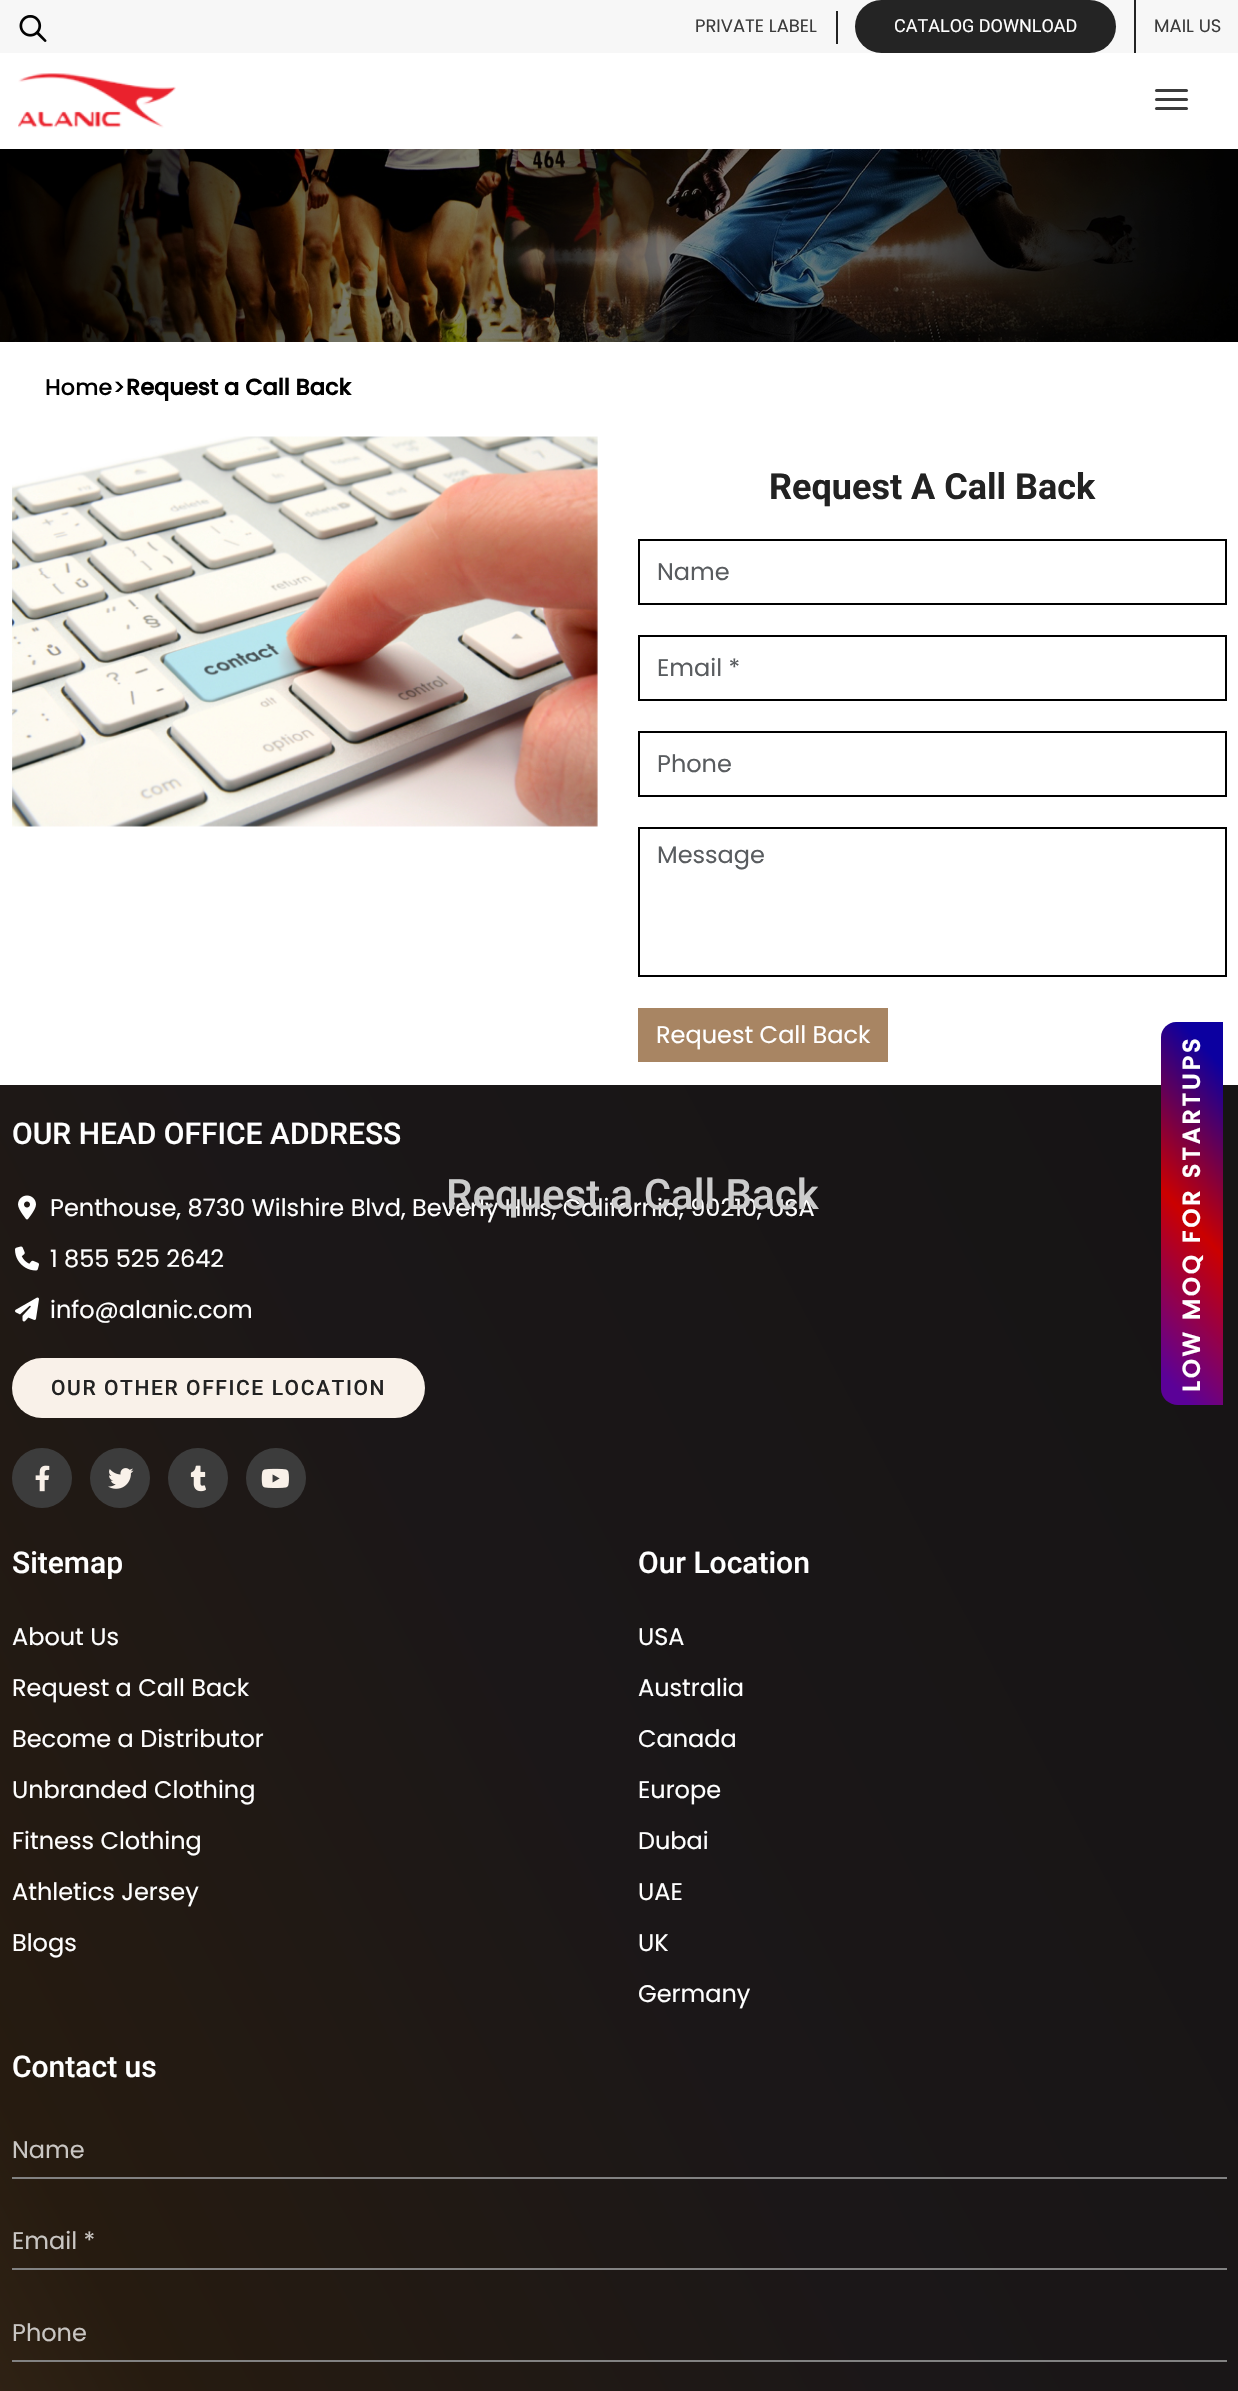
void draw(SkCanvas* c) {
SkPaint p;
p.setAntiAlias(true);
auto F=[&](const char* family, int weight, float size, bool italic = false){SkFontStyle style(weight, SkFontStyle::kNormal_Width,italic ? SkFontStyle::kItalic_Slant : SkFontStyle::kUpright_Slant);SkFont result(fontMgr->matchFamilyStyle(family, style), size);result.setSubpixel(true);return result;};
auto T=[&](const char* s, float x, float y, const SkFont& font){c->drawString(s, x, y, font, p);};
auto L=[&](const char* s, float x, float y, const SkFont& font, const SkPaint& ink, float letter, float word){std::vector<SkGlyphID> glyphs(font.countText(s, strlen(s), SkTextEncoding::kUTF8));std::vector<float> xs(glyphs.size());font.textToGlyphs(s, strlen(s), SkTextEncoding::kUTF8, glyphs);font.getXPos(glyphs, xs, x);float extra = 0;for (size_t i = 0; i < glyphs.size(); i++) {xs[i] += extra;extra += letter + word * (glyphs[i] == font.unicharToGlyph(' '));}c->drawTextBlob(SkTextBlob::MakeFromPosHGlyphs(glyphs, xs, y, font), 0, 0, ink);};
auto R=[&](float x, float y, float w, float h){c->drawRect(SkRect::MakeXYWH(x, y, w, h), p);};
auto Q=[&](float x, float y, float w, float h, float radius){c->drawRoundRect(SkRect::MakeXYWH(x, y, w, h), radius, radius, p);};
auto I=[&](const char* path, float x, float y, float w, float h){auto image = SkImages::DeferredFromEncodedData(SkData::MakeFromFileName(path));c->drawImageRect(image, SkRect::MakeXYWH(x, y, w, h), SkSamplingOptions());};
auto P=[&](const char* data, bool evenOdd = false){SkPath result = *SkParsePath::FromSVGString(data);if (evenOdd) result.setFillType(SkPathFillType::kEvenOdd);return result;};
c->clear(0xffffffff);
p.setColor(0xfff7f7f7);
R(0,0,1238,53);
I("1.png",19,15,28,27);
p.setColor(0xff242424);
R(836,11,2,33);
auto f1 = F("Poppins",400,18);
p.setColor(0xff3c3c3c);
T("PRIVATE LABEL",695,32,f1);
p.setColor(0xff242424);
R(1134,0,2,53);
Q(855,0,261,53,26.5);
auto f2 = F("Roboto",400,18);
p.setColor(0xffffffff);
T("CATALOG DOWNLOAD",894,32,f2);
p.setColor(0xff3c3c3c);
T("MAIL US",1154,32,f1);
I("2.png",18,73,158,55);
Q(1155,89,33,3,1.5);
Q(1155,98,33,3,1.5);
Q(1155,107,33,3,1.5);
auto f3 = F("Poppins",500,22.5);
p.setColor(0xff000000);
T("Home>",45,395,f3);
auto f4 = F("Poppins",700,22.5);
T("Request a Call Back",126,395,f4);
I("3.png",12,436,586,391);
auto f5 = F("Roboto",700,36);
p.setColor(0xff222222);
T("Request A Call Back",769,499,f5);
p.setStroke(true);
p.setStrokeWidth(2);
p.setColor(0xff000000);
c->drawRect(SkRect::MakeXYWH(639,540,587,64),p);
auto f6 = F("Poppins",400,24);
p.setStroke(false);
p.setColor(0xff595c5f);
T("Name",657,580,f6);
p.setStroke(true);
p.setColor(0xff000000);
c->drawRect(SkRect::MakeXYWH(639,636,587,64),p);
p.setStroke(false);
p.setColor(0xff595c5f);
T("Email *",657,676,f6);
p.setStroke(true);
p.setColor(0xff000000);
c->drawRect(SkRect::MakeXYWH(639,732,587,64),p);
p.setStroke(false);
p.setColor(0xff595c5f);
T("Phone",657,772,f6);
p.setStroke(true);
p.setColor(0xff000000);
c->drawRect(SkRect::MakeXYWH(639,828,587,148),p);
p.setStroke(false);
p.setColor(0xff595c5f);
T("Message",657,863,f6);
p.setColor(0xffa88563);
R(638,1008,250,54);
p.setColor(0xffffffff);
T("Request Call Back",656,1043,f6);
{
const SkColor colors[] = {0xff3a2a19,0xff261b10,0xff1b1718,0xff111111};
const float stops[] = {.02,.14,.38,1};
const SkPoint ends[] = {{-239,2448}, {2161,1171}};
p.setShader(SkGradientShader::MakeLinear(ends, colors, stops, 4, SkTileMode::kClamp));
p.setAlpha(255);
}
R(0,1085,1238,1306);
auto f7 = F("Roboto",500,30);
p.setShader(nullptr);
p.setColor(0xffffffff);
T("OUR HEAD OFFICE ADDRESS",12,1144,f7);
I("4.png",18,1195,18,25);
T("Penthouse, 8730 Wilshire Blvd, Beverly Hills, California, 90210, USA",50,1216,f6);
I("5.png",15,1246,24,25);
T("1 855 525 2642",50,1267,f6);
I("6.png",15,1297,24,25);
T("info@alanic.com",50,1318,f6);
p.setColor(0xfff9f1e9);
Q(12,1358,413,60,30);
auto f8 = F("Roboto",500,21);
p.setColor(0xff222222);
L("OUR OTHER OFFICE LOCATION",51,1395,f8,p,1.6,0);
p.setColor(0xff3c3c3c);
c->drawCircle(42,1478,30,p);
I("7.png",35,1465,15,27);
c->drawCircle(120,1478,30,p);
I("8.png",108,1468,26,21);
c->drawCircle(198,1478,30,p);
I("9.png",190,1465,16,27);
c->drawCircle(276,1478,30,p);
I("10.png",261,1468,28,20);
p.setColor(0xffffffff);
T("Sitemap",12,1573,f7);
T("About Us",12,1645,f6);
T("Request a Call Back",12,1696,f6);
T("Become a Distributor",12,1747,f6);
T("Unbranded Clothing",12,1798,f6);
T("Fitness Clothing",12,1849,f6);
T("Athletics Jersey",12,1900,f6);
T("Blogs",12,1951,f6);
T("Our Location",638,1573,f7);
T("USA",638,1645,f6);
T("Australia",638,1696,f6);
T("Canada",638,1747,f6);
T("Europe",638,1798,f6);
T("Dubai",638,1849,f6);
T("UAE",638,1900,f6);
T("UK",638,1951,f6);
T("Germany",638,2002,f6);
T("Contact us",12,2077,f7);
p.setColor(0xff828282);
R(12,2177,1215,2);
p.setColor(0xffc9c6c3);
T("Name",12,2158,f6);
p.setColor(0xff828282);
R(12,2268,1215,2);
p.setColor(0xffc9c6c3);
T("Email *",12,2249,f6);
p.setColor(0xff828282);
R(12,2360,1215,2);
p.setColor(0xffc9c6c3);
T("Phone",12,2341,f6);
{
const SkColor colors[] = {0xff5b0198,0xffcb0000,0xff0c00a0};
const float stops[] = {.07,.48,.9};
const SkPoint ends[] = {{1080,1316}, {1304,1111}};
p.setShader(SkGradientShader::MakeLinear(ends, colors, stops, 3, SkTileMode::kClamp));
p.setAlpha(255);
}
c->drawPath(P("M1161 1389v-352c0-8 7-15 15-15h47v383h-45c-9 0-17-7-17-16z"),p);
auto f9 = F("Poppins",700,24);
p.setShader(nullptr);
p.setColor(0xffffffff);
c->save();
c->rotate(-90,1200,1392);
L("LOW MOQ FOR STARTUPS",1200,1392,f9,p,3,0);
c->restore();
I("11.png",0,149,1238,193);
auto f10 = F("Roboto",500,42);
p.setColor(0xffcccccc);
T("Request a Call Back",446,1209,f10);
}
